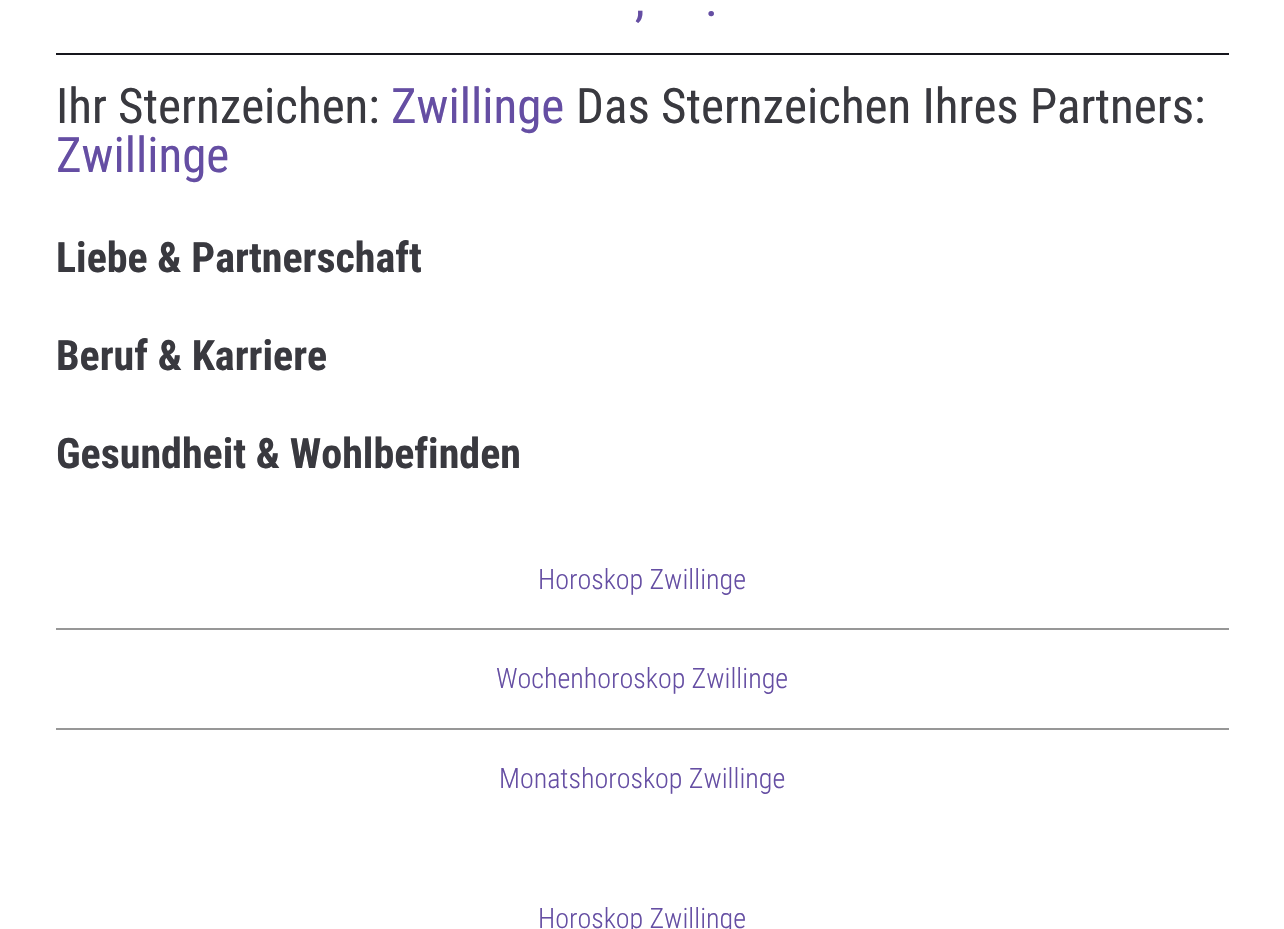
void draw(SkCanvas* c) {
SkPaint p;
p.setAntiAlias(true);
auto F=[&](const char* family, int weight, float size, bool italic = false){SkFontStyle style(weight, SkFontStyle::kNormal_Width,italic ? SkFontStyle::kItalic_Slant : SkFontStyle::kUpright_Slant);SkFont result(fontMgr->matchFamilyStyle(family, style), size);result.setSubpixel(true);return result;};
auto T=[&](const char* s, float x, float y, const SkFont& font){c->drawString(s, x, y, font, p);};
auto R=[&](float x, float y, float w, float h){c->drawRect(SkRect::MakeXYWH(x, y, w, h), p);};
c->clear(0xffffffff);
auto f1 = F("Roboto Condensed",400,49);
p.setColor(0xff654ea3);
T(",",635,16,f1);
T(".",705,16,f1);
p.setColor(0xff16161d);
R(56,53,1173,2);
p.setColor(0xff39393f);
T("Ihr Sternzeichen:",56,123,f1);
p.setColor(0xff654ea3);
T("Zwillinge",391,123,f1);
p.setColor(0xff39393f);
T("Das Sternzeichen Ihres Partners:",576,123,f1);
p.setColor(0xff654ea3);
T("Zwillinge",56,172,f1);
auto f2 = F("Roboto Condensed",700,42);
p.setColor(0xff39393f);
T("Liebe & Partnerschaft",56,272,f2);
T("Beruf & Karriere",56,370,f2);
T("Gesundheit & Wohlbefinden",56,468,f2);
p.setColor(0xff979797);
R(56,628,1173,2);
auto f3 = F("Roboto Condensed",300,28);
p.setColor(0xff654ea3);
T("Horoskop Zwillinge",538,589,f3);
p.setColor(0xff979797);
R(56,728,1173,2);
p.setColor(0xff654ea3);
T("Wochenhoroskop Zwillinge",496,688,f3);
T("Monatshoroskop Zwillinge",499,788,f3);
T("Horoskop Zwillinge",538,928,f3);
}
